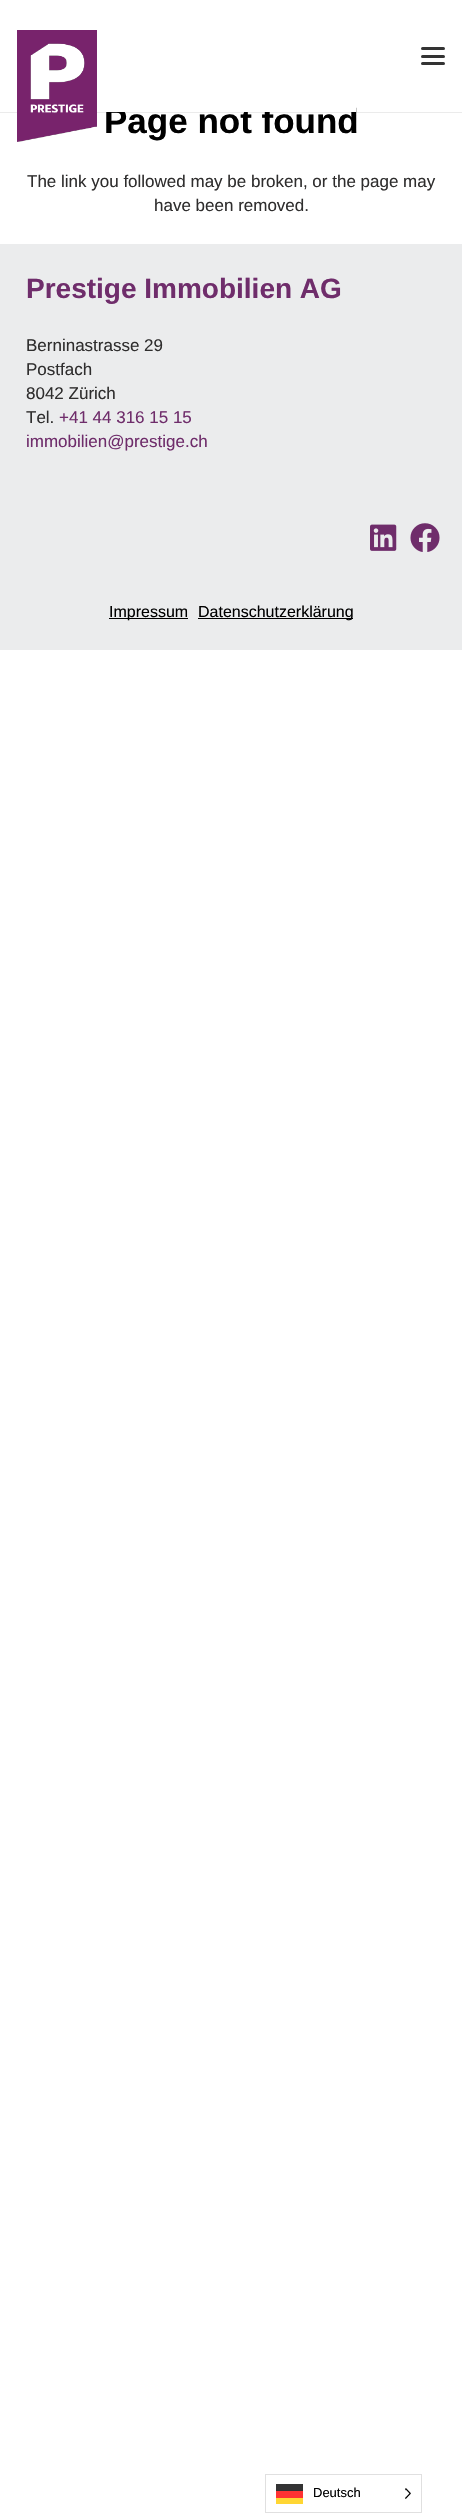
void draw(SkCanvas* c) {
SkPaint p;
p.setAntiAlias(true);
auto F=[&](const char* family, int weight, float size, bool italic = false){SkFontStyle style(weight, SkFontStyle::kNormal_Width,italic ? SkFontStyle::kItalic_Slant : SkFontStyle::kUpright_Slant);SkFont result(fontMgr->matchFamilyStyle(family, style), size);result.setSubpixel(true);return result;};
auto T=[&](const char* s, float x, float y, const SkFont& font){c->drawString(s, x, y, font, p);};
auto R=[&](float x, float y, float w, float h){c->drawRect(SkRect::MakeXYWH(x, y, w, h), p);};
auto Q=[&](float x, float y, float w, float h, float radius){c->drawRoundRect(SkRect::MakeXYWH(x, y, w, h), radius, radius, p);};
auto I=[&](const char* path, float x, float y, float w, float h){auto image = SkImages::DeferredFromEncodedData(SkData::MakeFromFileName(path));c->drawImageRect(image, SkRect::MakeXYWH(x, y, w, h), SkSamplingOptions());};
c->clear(0xffffffff);
p.setColor(0x14000000);
R(0,112,462,1);
auto f1 = F("Liberation Sans",700,35);
p.setColor(0xff000000);
T("Page not found",104,133,f1);
p.setColor(0xffffffff);
R(105,107,251,5);
I("1.png",17,30,80,112);
p.setColor(0xff333333);
Q(421,55,24,3,1.5);
Q(421,47,24,3,1.5);
Q(421,62,24,3,1.5);
auto f2 = F("Liberation Sans",400,17);
p.setColor(0xff2f2e2e);
T("The link you followed may be broken, or the page may",27,187,f2);
T("have been removed.",154,211,f2);
p.setColor(0xffebeced);
R(0,244,462,406);
auto f3 = F("Liberation Sans",700,28);
p.setColor(0xff6f2d6b);
T("Prestige Immobilien AG",26,298,f3);
p.setColor(0xff2f2e2e);
T("Berninastrasse 29",26,351,f2);
T("Postfach",26,375,f2);
T("8042 Zürich",26,399,f2);
T("Tel.",26,423,f2);
p.setColor(0xff6f2d6b);
T("+41 44 316 15 15",59,423,f2);
T("immobilien@prestige.ch",26,447,f2);
I("2.png",370,524,27,27);
I("3.png",410,523,30,29);
p.setColor(0xff000000);
R(109,618,79,1);
auto f4 = F("Liberation Sans",400,16);
T("Impressum",109,617,f4);
R(198,618,155,1);
T("Datenschutzerklärung",198,617,f4);
p.setStroke(true);
p.setStrokeWidth(1);
p.setColor(0xffe0e0e0);
c->drawRect(SkRect::MakeXYWH(265.5,2474.5,156,38),p);
p.setStroke(false);
p.setColor(0xffffd633);
R(276,2498,27,6);
p.setColor(0xff333334);
R(276,2484,27,7);
p.setColor(0xffff3333);
R(276,2491,27,7);
auto f5 = F("Liberation Sans",400,13);
p.setColor(0xff000000);
T("Deutsch",313,2497,f5);
I("4.png",405,2488,6,11);
}
